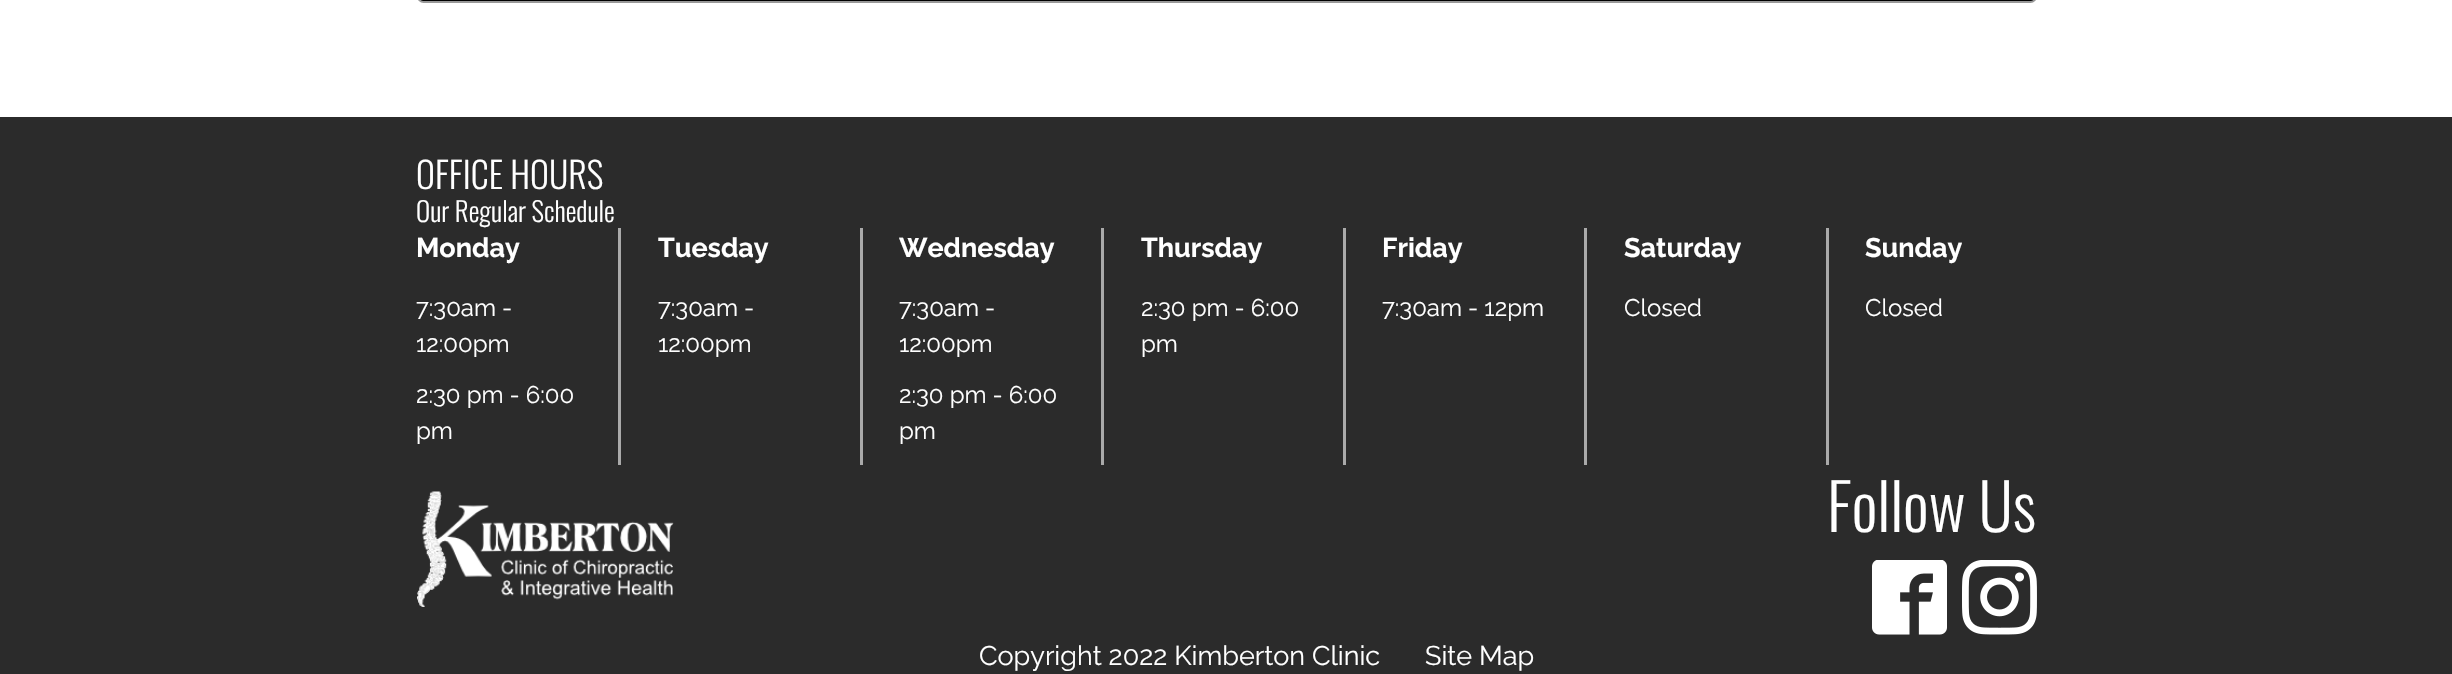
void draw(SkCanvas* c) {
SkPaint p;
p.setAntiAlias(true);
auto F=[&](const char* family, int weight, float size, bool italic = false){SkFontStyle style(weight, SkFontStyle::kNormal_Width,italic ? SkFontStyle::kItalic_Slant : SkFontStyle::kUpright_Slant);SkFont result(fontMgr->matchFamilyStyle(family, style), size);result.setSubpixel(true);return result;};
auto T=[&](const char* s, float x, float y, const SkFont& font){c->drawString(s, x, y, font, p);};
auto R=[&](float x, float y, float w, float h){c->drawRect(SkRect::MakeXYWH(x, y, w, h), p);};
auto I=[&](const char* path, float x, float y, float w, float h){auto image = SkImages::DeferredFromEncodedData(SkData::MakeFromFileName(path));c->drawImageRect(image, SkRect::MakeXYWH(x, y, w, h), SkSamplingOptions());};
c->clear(0xffffffff);
p.setColor(0xff000000);
c->drawRoundRect(SkRect::MakeXYWH(418,-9,1618,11),7,7,p);
p.setStroke(true);
p.setStrokeWidth(2);
p.setColor(0xff999999);
c->drawRoundRect(SkRect::MakeXYWH(418,-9,1618,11),7,7,p);
p.setStroke(false);
p.setColor(0xff2b2b2b);
R(0,117,2452,557);
auto f1 = F("Oswald",300,36);
p.setColor(0xffffffff);
T("OFFICE HOURS",416,189,f1);
auto f2 = F("Oswald",300,27);
T("Our Regular Schedule",416,222,f2);
p.setColor(0xffaaaaaa);
R(618,228,3,237);
auto f3 = F("Raleway",700,27);
p.setColor(0xffffffff);
T("Monday",416,257,f3);
auto f4 = F("Raleway",400,24);
T("7:30am -",416,316,f4);
T("12:00pm",416,352,f4);
T("2:30 pm - 6:00",416,403,f4);
T("pm",416,439,f4);
p.setColor(0xffaaaaaa);
R(860,228,3,237);
p.setColor(0xffffffff);
T("Tuesday",658,257,f3);
T("7:30am -",658,316,f4);
T("12:00pm",658,352,f4);
p.setColor(0xffaaaaaa);
R(1101,228,3,237);
p.setColor(0xffffffff);
T("Wednesday",899,257,f3);
T("7:30am -",899,316,f4);
T("12:00pm",899,352,f4);
T("2:30 pm - 6:00",899,403,f4);
T("pm",899,439,f4);
p.setColor(0xffaaaaaa);
R(1343,228,3,237);
p.setColor(0xffffffff);
T("Thursday",1141,257,f3);
T("2:30 pm - 6:00",1141,316,f4);
T("pm",1141,352,f4);
p.setColor(0xffaaaaaa);
R(1584,228,3,237);
p.setColor(0xffffffff);
T("Friday",1382,257,f3);
T("7:30am - 12pm",1382,316,f4);
p.setColor(0xffaaaaaa);
R(1826,228,3,237);
p.setColor(0xffffffff);
T("Saturday",1624,257,f3);
T("Closed",1624,316,f4);
T("Sunday",1865,257,f3);
T("Closed",1865,316,f4);
I("1.png",417,491,257,116);
auto f5 = F("Oswald",300,64);
T("Follow Us",1827,532,f5);
I("2.png",1872,560,75,75);
I("3.png",1962,560,75,75);
auto f6 = F("Raleway",400,27);
T("Copyright 2022 Kimberton Clinic",979,665,f6);
T("Site Map",1425,665,f6);
}
